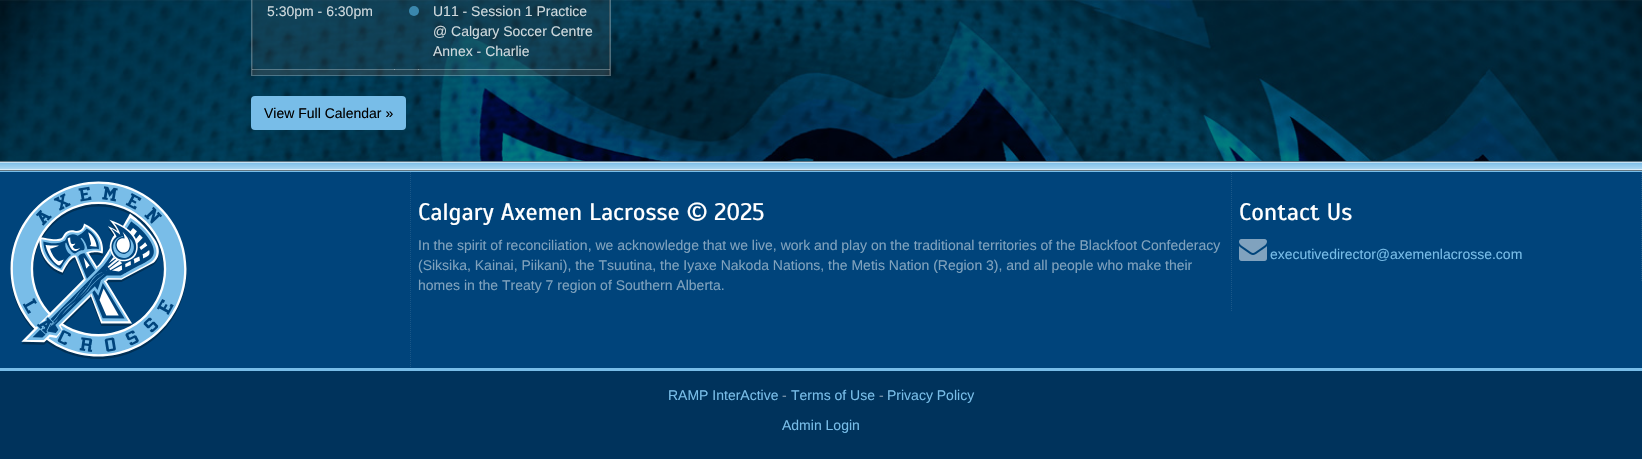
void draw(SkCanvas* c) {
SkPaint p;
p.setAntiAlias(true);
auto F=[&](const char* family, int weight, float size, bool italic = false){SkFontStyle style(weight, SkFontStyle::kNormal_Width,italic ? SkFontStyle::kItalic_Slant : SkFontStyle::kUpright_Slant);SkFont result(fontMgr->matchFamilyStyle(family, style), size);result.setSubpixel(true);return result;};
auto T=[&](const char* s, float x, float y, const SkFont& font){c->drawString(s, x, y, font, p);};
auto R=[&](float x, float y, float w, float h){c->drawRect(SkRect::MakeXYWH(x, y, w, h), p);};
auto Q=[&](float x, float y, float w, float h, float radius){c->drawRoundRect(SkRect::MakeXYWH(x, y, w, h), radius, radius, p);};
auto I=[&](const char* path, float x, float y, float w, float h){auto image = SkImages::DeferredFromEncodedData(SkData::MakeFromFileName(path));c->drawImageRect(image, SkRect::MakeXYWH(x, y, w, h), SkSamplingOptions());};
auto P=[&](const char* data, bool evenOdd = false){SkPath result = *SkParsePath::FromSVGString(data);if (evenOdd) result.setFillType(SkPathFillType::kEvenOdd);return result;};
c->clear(0xffffffff);
I("1.png",0,0,1642,161);
p.setColor(0x80000000);
R(0,0,1642,161);
p.setStroke(true);
p.setStrokeWidth(1);
p.setColor(0x4dffffff);
c->drawRect(SkRect::MakeXYWH(251.5,-.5,359,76),p);
p.setStroke(false);
p.setColor(0x33525252);
R(253,0,357,70);
p.setColor(0x66525252);
R(253,70,357,5);
p.setColor(0x667d7d7d);
R(609,0,1,75);
R(252,0,1,75);
auto f1 = F("Liberation Sans",400,14);
p.setColor(0xffcfd9dd);
T("5:30pm - 6:30pm",267,16,f1);
p.setColor(0xff3a87ad);
c->drawCircle(414,11,5,p);
p.setColor(0xffcfd9dd);
T("U11 - Session 1 Practice",433,16,f1);
T("@ Calgary Soccer Centre",433,36,f1);
T("Annex - Charlie",433,56,f1);
p.setColor(0x4dffffff);
R(418,69,192,1);
R(394,69,25,1);
R(252,69,143,1);
p.setColor(0xff78bde8);
Q(251,96,155,34,4);
p.setColor(0xff000000);
T("View Full Calendar »",264,118,f1);
p.setColor(0xff78bde8);
R(0,161,1642,11);
I("2.png",0,161,1642,10);
p.setColor(0xff00447b);
R(0,172,1642,196);
p.setStroke(true);
p.setColor(0xff1a5788);
p.setPathEffect(SkDashPathEffect::Make({{1,1}}, 0));
c->drawPath(P("M410.5 172v196"),p);
p.setPathEffect(nullptr);
I("3.png",10,181,177,178);
p.setPathEffect(SkDashPathEffect::Make({{1,1}}, 0));
c->drawPath(P("M1231.5 172v140"),p);
p.setPathEffect(nullptr);
auto f2 = F("Scada",400,24);
p.setStroke(false);
p.setColor(0xffffffff);
T("Calgary Axemen Lacrosse © 2025",418,220,f2);
p.setColor(0xff80a2bd);
T("In the spirit of reconciliation, we acknowledge that we live, work and play on the traditional territories of the Blackfoot Confederacy",418,250,f1);
T("(Siksika, Kainai, Piikani), the Tsuutina, the Iyaxe Nakoda Nations, the Metis Nation (Region 3), and all people who make their",418,270,f1);
T("homes in the Treaty 7 region of Southern Alberta.",418,290,f1);
p.setStroke(true);
p.setColor(0xff1a5788);
p.setPathEffect(SkDashPathEffect::Make({{1,1}}, 0));
c->drawPath(P("M1641.5 172v109"),p);
p.setPathEffect(nullptr);
p.setStroke(false);
p.setColor(0xffffffff);
T("Contact Us",1239,220,f2);
I("4.png",1239,239,28,22);
p.setColor(0xff78bde8);
T("executivedirector@axemenlacrosse.com",1270,259,f1);
R(0,368,1642,3);
p.setColor(0xff00335c);
R(0,371,1642,88);
p.setColor(0xff78bde8);
T("RAMP InterActive",668,400,f1);
p.setColor(0xff8099ae);
T("-",782,400,f1);
p.setColor(0xff78bde8);
T("Terms of Use",791,400,f1);
p.setColor(0xff8099ae);
T("-",879,400,f1);
p.setColor(0xff78bde8);
T("Privacy Policy",887,400,f1);
T("Admin Login",782,430,f1);
}
